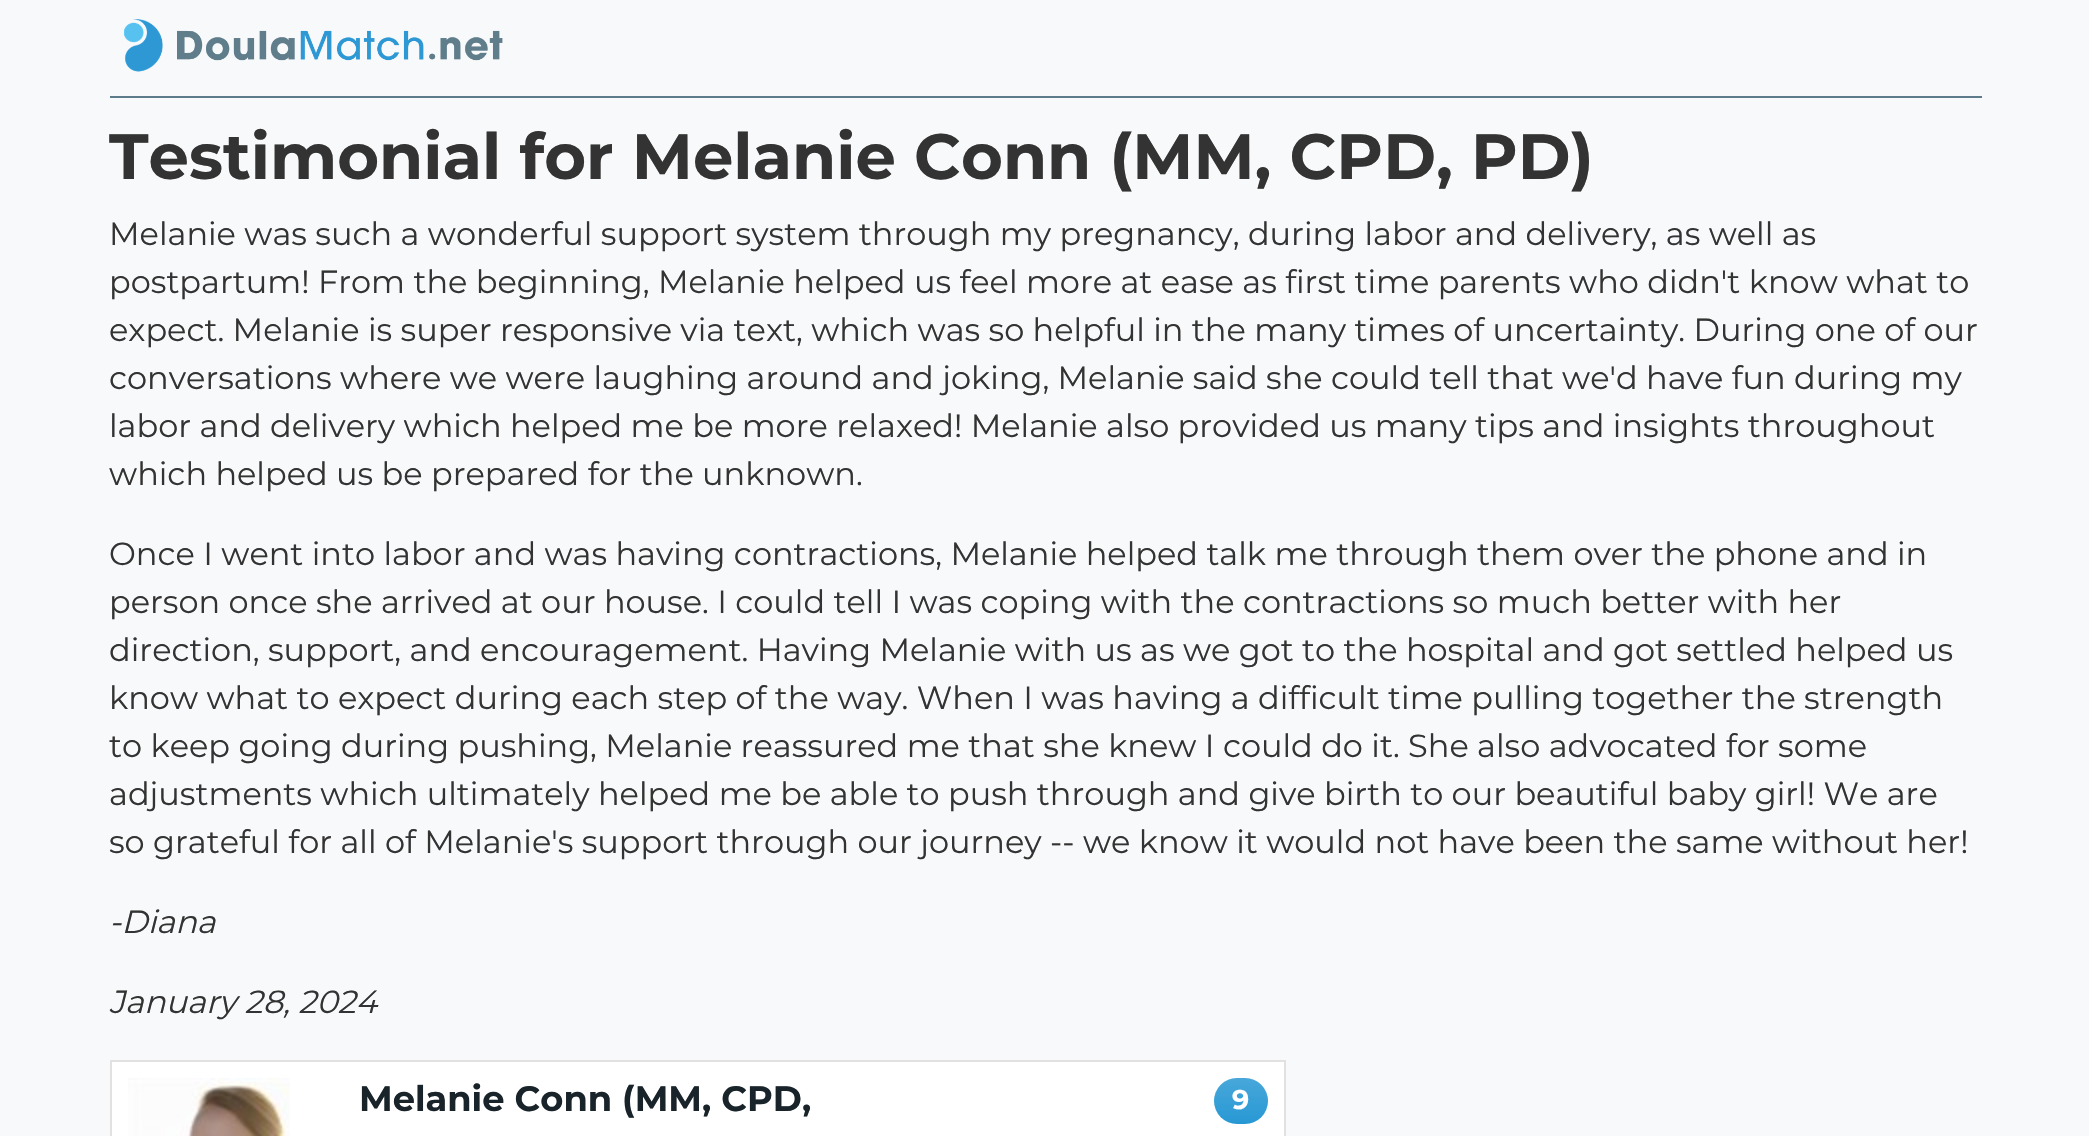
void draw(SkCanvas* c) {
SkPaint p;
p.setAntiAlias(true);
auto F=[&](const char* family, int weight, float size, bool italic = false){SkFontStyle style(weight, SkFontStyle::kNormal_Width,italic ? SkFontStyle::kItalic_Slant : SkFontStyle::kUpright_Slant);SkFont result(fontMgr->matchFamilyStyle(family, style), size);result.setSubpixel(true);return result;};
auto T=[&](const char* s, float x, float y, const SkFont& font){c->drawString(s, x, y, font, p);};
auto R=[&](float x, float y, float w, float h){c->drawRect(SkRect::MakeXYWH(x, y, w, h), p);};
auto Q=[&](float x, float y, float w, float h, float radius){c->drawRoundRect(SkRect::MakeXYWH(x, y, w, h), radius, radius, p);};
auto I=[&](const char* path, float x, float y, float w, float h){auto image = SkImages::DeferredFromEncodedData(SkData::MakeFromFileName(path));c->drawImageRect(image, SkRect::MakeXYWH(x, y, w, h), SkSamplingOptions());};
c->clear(0xfff8f9fa);
I("1.png",124,19,379,53);
p.setColor(0xff5d7b8a);
R(110,96,1872,2);
auto f1 = F("Montserrat",100,64);
p.setColor(0xff333333);
T("Testimonial for Melanie Conn (MM, CPD, PD)",109,179,f1);
auto f2 = F("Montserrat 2",100,32);
T("Melanie was such a wonderful support system through my pregnancy, during labor and delivery, as well as",109,245,f2);
T("postpartum! From the beginning, Melanie helped us feel more at ease as first time parents who didn't know what to",109,293,f2);
T("expect. Melanie is super responsive via text, which was so helpful in the many times of uncertainty. During one of our",109,341,f2);
T("conversations where we were laughing around and joking, Melanie said she could tell that we'd have fun during my",109,389,f2);
T("labor and delivery which helped me be more relaxed! Melanie also provided us many tips and insights throughout",109,437,f2);
T("which helped us be prepared for the unknown.",109,485,f2);
T("Once I went into labor and was having contractions, Melanie helped talk me through them over the phone and in",109,565,f2);
T("person once she arrived at our house. I could tell I was coping with the contractions so much better with her",109,613,f2);
T("direction, support, and encouragement. Having Melanie with us as we got to the hospital and got settled helped us",109,661,f2);
T("know what to expect during each step of the way. When I was having a difficult time pulling together the strength",109,709,f2);
T("to keep going during pushing, Melanie reassured me that she knew I could do it. She also advocated for some",109,757,f2);
T("adjustments which ultimately helped me be able to push through and give birth to our beautiful baby girl! We are",109,805,f2);
T("so grateful for all of Melanie's support through our journey -- we know it would not have been the same without her!",109,853,f2);
auto f3 = F("Montserrat",100,32,true);
T("-Diana",109,933,f3);
T("January 28, 2024",109,1013,f3);
p.setColor(0xffffffff);
c->drawRect(SkRect::MakeXYWH(111,1061,1174,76),p);
p.setStroke(true);
p.setStrokeWidth(2);
p.setColor(0xffe1e1e1);
c->drawRect(SkRect::MakeXYWH(111,1061,1174,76),p);
I("2.png",128,1078,162,58);
auto f4 = F("Montserrat",100,35.25);
p.setStroke(false);
p.setColor(0xff19242a);
T("Melanie Conn (MM, CPD,",359,1111,f4);
p.setColor(0xff2798d4);
Q(1214,1078,54,46,23);
{
const SkColor colors[] = {0x26ffffff,0x00ffffff};
const float stops[] = {0,1};
const SkPoint ends[] = {{1241,1078}, {1241,1124}};
p.setShader(SkGradientShader::MakeLinear(ends, colors, stops, 2, SkTileMode::kClamp));
p.setAlpha(255);
}
Q(1214,1078,54,46,23);
auto f5 = F("Montserrat",100,27);
p.setShader(nullptr);
p.setColor(0xffffffff);
T("9",1232,1109,f5);
}
